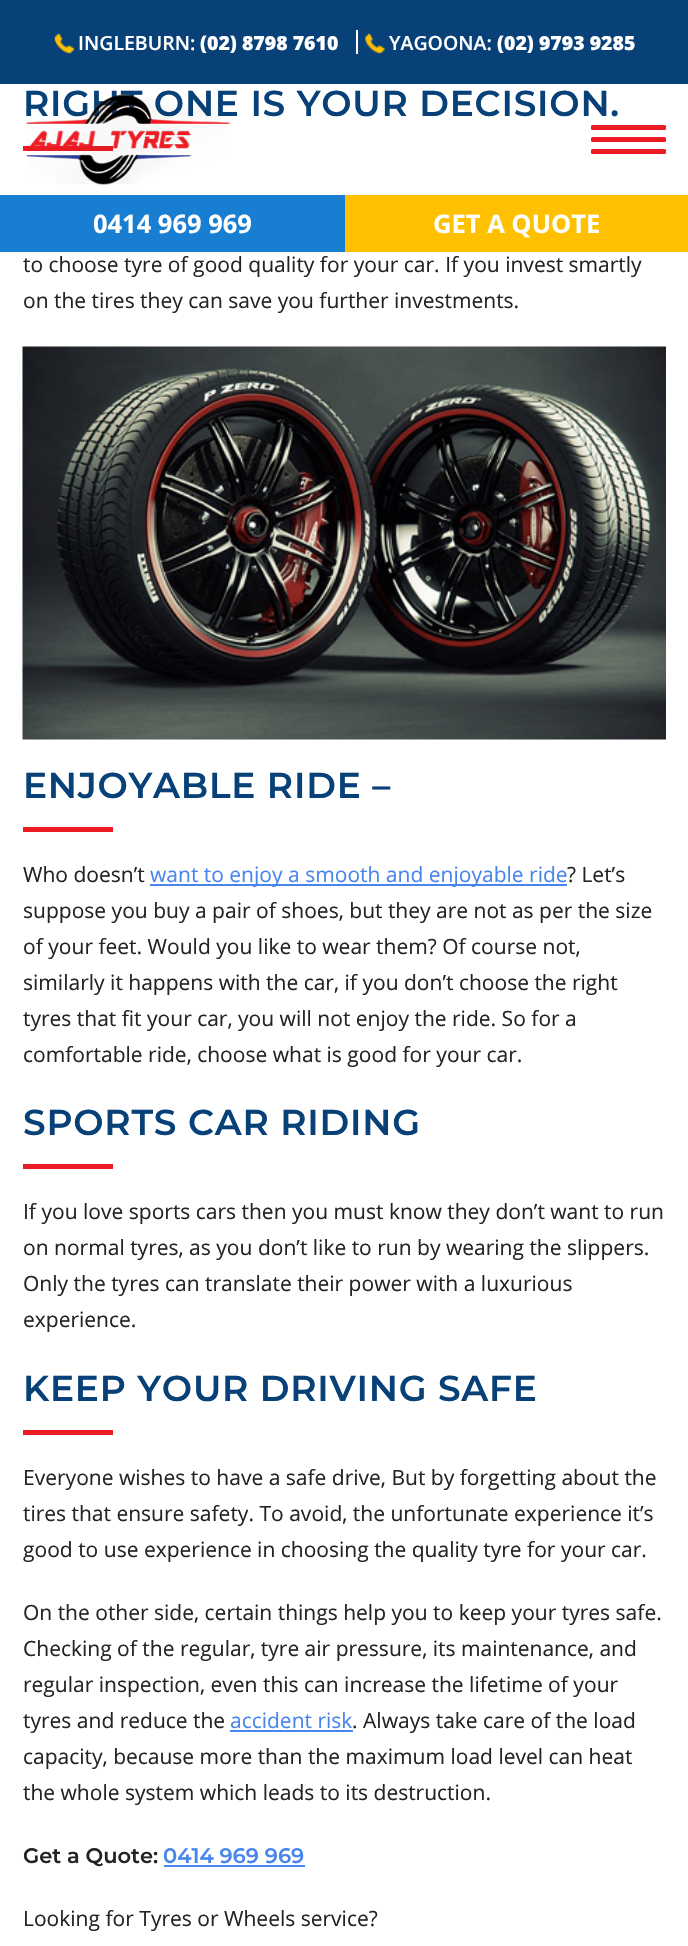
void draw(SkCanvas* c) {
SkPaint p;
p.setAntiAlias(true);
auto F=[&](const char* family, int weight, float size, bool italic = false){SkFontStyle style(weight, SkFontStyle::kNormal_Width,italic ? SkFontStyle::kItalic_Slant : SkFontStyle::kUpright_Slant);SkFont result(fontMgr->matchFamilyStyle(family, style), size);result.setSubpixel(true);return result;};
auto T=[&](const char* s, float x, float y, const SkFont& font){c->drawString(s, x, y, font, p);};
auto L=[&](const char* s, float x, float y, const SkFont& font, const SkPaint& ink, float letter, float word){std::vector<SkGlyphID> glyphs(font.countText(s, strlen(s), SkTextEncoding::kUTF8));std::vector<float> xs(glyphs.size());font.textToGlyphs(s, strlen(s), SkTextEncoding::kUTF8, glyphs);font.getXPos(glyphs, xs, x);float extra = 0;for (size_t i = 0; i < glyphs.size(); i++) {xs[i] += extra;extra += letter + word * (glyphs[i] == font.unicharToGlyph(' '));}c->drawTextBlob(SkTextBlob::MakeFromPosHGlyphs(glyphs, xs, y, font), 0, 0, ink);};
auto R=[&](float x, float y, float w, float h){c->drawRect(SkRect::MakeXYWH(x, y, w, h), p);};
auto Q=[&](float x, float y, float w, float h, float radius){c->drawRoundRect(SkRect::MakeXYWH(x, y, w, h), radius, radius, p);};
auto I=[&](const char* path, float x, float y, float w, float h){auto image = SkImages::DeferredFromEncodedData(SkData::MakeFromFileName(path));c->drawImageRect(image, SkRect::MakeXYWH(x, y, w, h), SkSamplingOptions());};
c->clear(0xffffffff);
p.setColor(0xff074178);
R(0,0,688,84);
I("1.png",54,33,21,21);
auto f1 = F("Open Sans",600,19.5);
p.setColor(0xffffffff);
T("INGLEBURN:",78,50,f1);
auto f2 = F("Open Sans",800,19.5);
T("(02) 8798 7610",200,50,f2);
R(356,30,2,24);
I("2.png",365,33,20,21);
T("YAGOONA:",389,50,f1);
T("(02) 9793 9285",497,50,f2);
auto f3 = F("Montserrat",600,36);
p.setColor(0xff074178);
L("RIGHT ONE IS YOUR DECISION.",23,116,f3,p,.75,0);
p.setColor(0xffed1c24);
R(23,146,90,5);
I("3.png",26,94,205,91);
Q(591,125,75,5,1.5);
Q(591,137,75,5,1.5);
Q(591,149,75,5,1.5);
p.setColor(0xff187ed2);
R(0,195,345,57);
auto f4 = F("Open Sans",700,25.5);
p.setColor(0xffffffff);
T("0414 969 969",93,233,f4);
p.setColor(0xffffc000);
R(345,195,343,57);
p.setColor(0xffffffff);
T("GET A QUOTE",433,233,f4);
auto f5 = F("Open Sans",400,21);
p.setColor(0xff242424);
T("to choose tyre of good quality for your car. If you invest smartly",23,272,f5);
T("on the tires they can save you further investments.",23,308,f5);
I("4.png",22,346,644,394);
p.setColor(0xff074178);
L("ENJOYABLE RIDE –",23,798,f3,p,.75,0);
p.setColor(0xffed1c24);
R(23,827,90,5);
p.setColor(0xff242424);
T("Who doesn’t",23,882,f5);
p.setColor(0xff4885ed);
R(150,884,417,2);
T("want to enjoy a smooth and enjoyable ride",150,882,f5);
p.setColor(0xff242424);
T("? Let’s",567,882,f5);
T("suppose you buy a pair of shoes, but they are not as per the size",23,918,f5);
T("of your feet. Would you like to wear them? Of course not,",23,954,f5);
T("similarly it happens with the car, if you don’t choose the right",23,990,f5);
T("tyres that fit your car, you will not enjoy the ride. So for a",23,1026,f5);
T("comfortable ride, choose what is good for your car.",23,1062,f5);
p.setColor(0xff074178);
L("SPORTS CAR RIDING",23,1135,f3,p,.75,0);
p.setColor(0xffed1c24);
R(23,1164,90,5);
p.setColor(0xff242424);
T("If you love sports cars then you must know they don’t want to run",23,1219,f5);
T("on normal tyres, as you don’t like to run by wearing the slippers.",23,1255,f5);
T("Only the tyres can translate their power with a luxurious",23,1291,f5);
T("experience.",23,1327,f5);
p.setColor(0xff074178);
L("KEEP YOUR DRIVING SAFE",23,1401,f3,p,.75,0);
p.setColor(0xffed1c24);
R(23,1430,90,5);
p.setColor(0xff242424);
T("Everyone wishes to have a safe drive, But by forgetting about the",23,1485,f5);
T("tires that ensure safety. To avoid, the unfortunate experience it’s",23,1521,f5);
T("good to use experience in choosing the quality tyre for your car.",23,1557,f5);
T("On the other side, certain things help you to keep your tyres safe.",23,1620,f5);
T("Checking of the regular, tyre air pressure, its maintenance, and",23,1656,f5);
T("regular inspection, even this can increase the lifetime of your",23,1692,f5);
T("tyres and reduce the",23,1728,f5);
p.setColor(0xff4885ed);
T("accident risk",230,1728,f5);
R(230,1730,123,2);
p.setColor(0xff242424);
T(". Always take care of the load",352,1728,f5);
T("capacity, because more than the maximum load level can heat",23,1764,f5);
T("the whole system which leads to its destruction.",23,1800,f5);
auto f6 = F("Montserrat",600,21);
T("Get a Quote:",23,1863,f6);
p.setColor(0xff4885ed);
T("0414 969 969",163,1863,f6);
R(164,1865,141,2);
p.setColor(0xff242424);
T("Looking for Tyres or Wheels service?",23,1926,f5);
}
